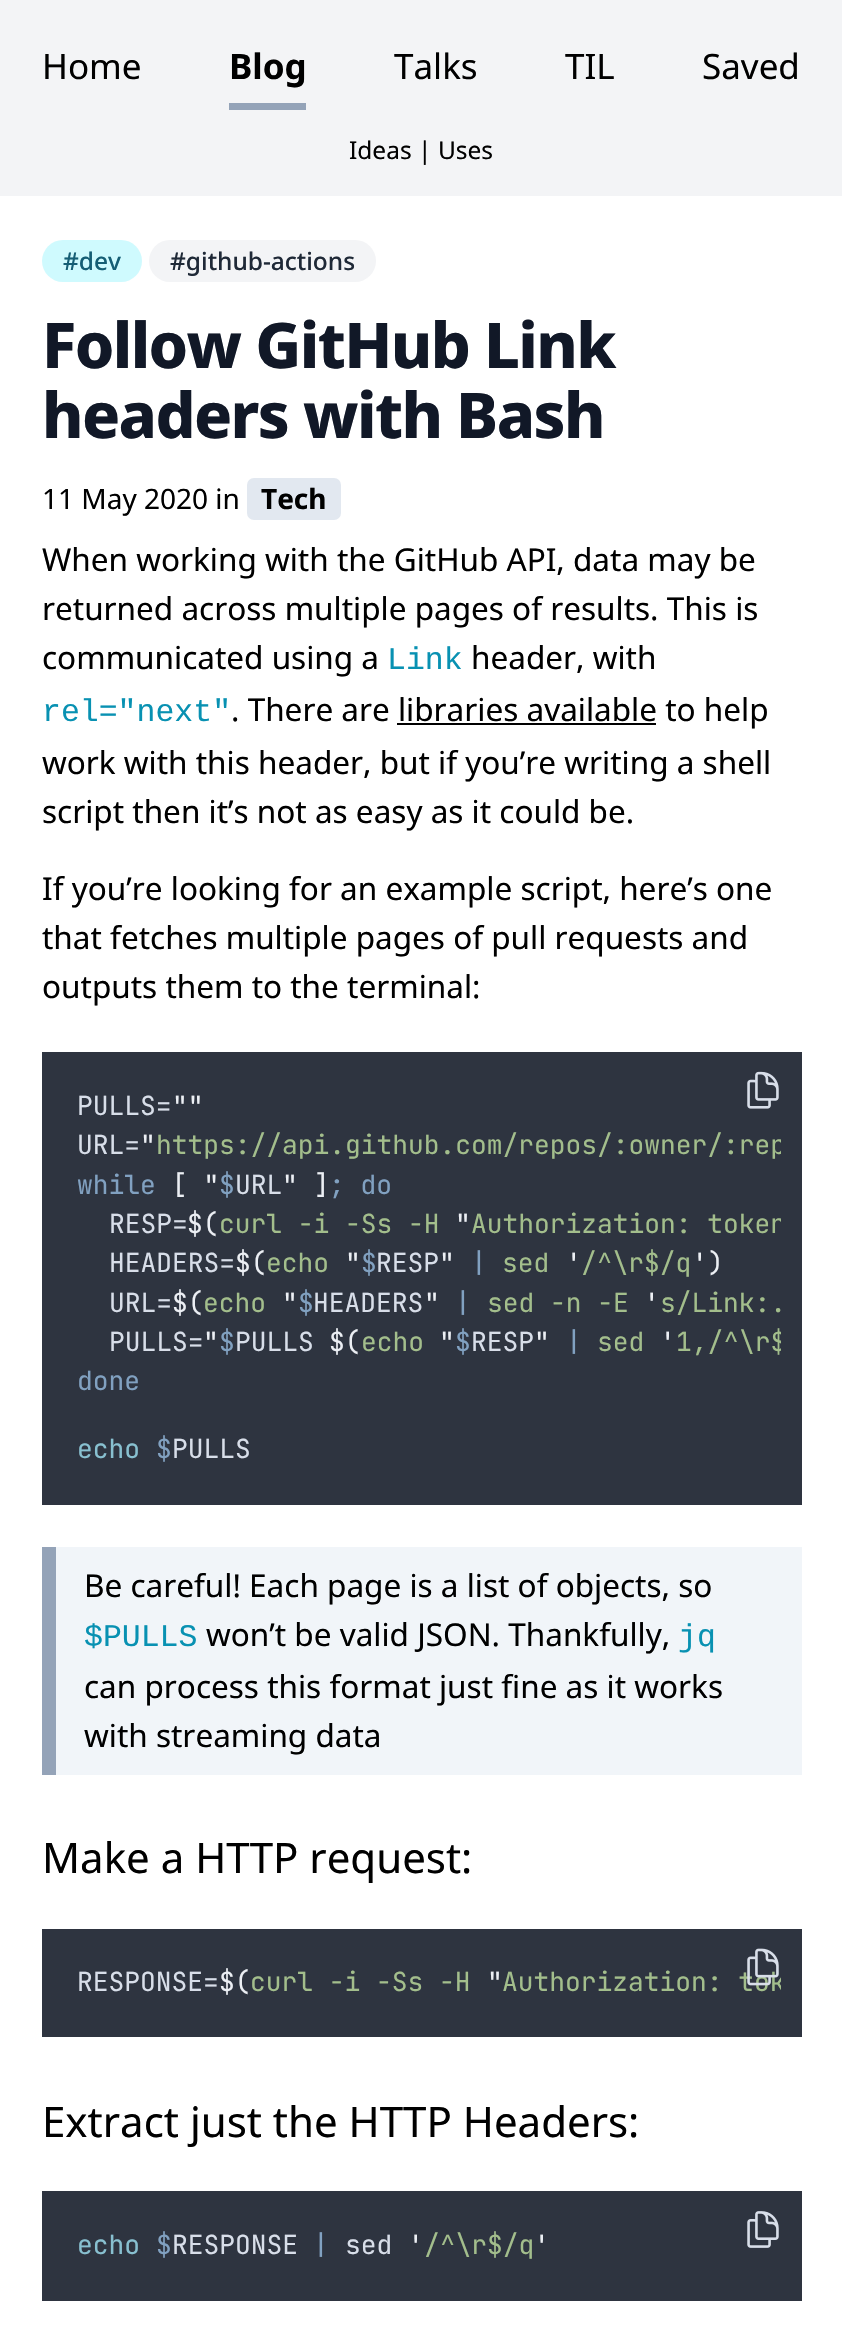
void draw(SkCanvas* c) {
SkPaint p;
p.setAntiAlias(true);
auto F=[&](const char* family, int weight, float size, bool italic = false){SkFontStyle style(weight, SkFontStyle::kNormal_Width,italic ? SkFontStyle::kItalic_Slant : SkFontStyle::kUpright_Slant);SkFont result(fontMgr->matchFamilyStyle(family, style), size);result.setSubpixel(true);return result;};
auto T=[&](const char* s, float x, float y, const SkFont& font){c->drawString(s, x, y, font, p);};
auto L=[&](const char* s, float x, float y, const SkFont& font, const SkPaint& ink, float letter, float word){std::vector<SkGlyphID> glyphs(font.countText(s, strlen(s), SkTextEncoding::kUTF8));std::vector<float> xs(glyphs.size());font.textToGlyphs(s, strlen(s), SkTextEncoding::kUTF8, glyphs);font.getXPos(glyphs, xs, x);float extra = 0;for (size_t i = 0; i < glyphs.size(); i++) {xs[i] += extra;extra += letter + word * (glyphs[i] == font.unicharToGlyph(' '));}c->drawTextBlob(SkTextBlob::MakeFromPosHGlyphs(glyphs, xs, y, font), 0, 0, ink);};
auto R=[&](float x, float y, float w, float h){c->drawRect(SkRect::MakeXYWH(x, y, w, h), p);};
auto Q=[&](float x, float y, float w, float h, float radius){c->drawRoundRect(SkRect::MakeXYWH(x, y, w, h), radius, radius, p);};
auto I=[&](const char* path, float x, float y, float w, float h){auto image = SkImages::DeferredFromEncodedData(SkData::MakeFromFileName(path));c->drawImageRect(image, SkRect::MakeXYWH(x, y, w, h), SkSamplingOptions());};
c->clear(0xffffffff);
p.setColor(0xfff3f4f6);
R(0,0,842,196);
auto f1 = F("Noto Sans",400,35);
p.setColor(0xff000000);
T("Home",42,79,f1);
auto f2 = F("Noto Sans",700,35);
T("Blog",229,79,f2);
p.setColor(0xff94a3b8);
R(229,103,77,7);
p.setColor(0xff000000);
T("Talks",394,79,f1);
T("TIL",565,79,f1);
T("Saved",702,79,f1);
auto f3 = F("Noto Sans",400,24.5);
T("Ideas | Uses",349,159,f3);
p.setColor(0xffcffafe);
Q(42,240,100,42,21);
auto f4 = F("Noto Sans",500,24.5);
p.setColor(0xff155e75);
T("#dev",63,270,f4);
p.setColor(0xfff3f4f6);
Q(149,240,227,42,21);
p.setColor(0xff1f2937);
T("#github-actions",170,270,f4);
auto f5 = F("Noto Sans",800,63);
p.setColor(0xff111827);
L("Follow GitHub Link",42,368,f5,p,-1.6,0);
L("headers with Bash",42,438,f5,p,-1.6,0);
auto f6 = F("Noto Sans",400,28);
p.setColor(0xff000000);
T("11 May 2020 in",42,509,f6);
p.setColor(0xffe2e8f0);
Q(247,478,94,42,7);
auto f7 = F("Noto Sans",700,28);
p.setColor(0xff000000);
T("Tech",261,509,f7);
auto f8 = F("Noto Sans",400,31.5);
T("When working with the GitHub API, data may be",42,571,f8);
T("returned across multiple pages of results. This is",42,620,f8);
T("communicated using a",42,669,f8);
auto f9 = F("Liberation Mono",400,31.5);
p.setColor(0xff0891b2);
T("Link",387,669,f9);
p.setColor(0xff000000);
T("header, with",471,669,f8);
p.setColor(0xff0891b2);
T("rel=\"next\"",42,721,f9);
p.setColor(0xff000000);
T(". There are libraries available to help",231,721,f8);
R(397,723,259,2);
T("work with this header, but if you’re writing a shell",42,774,f8);
T("script then it’s not as easy as it could be.",42,823,f8);
T("If you’re looking for an example script, here’s one",42,900,f8);
T("that fetches multiple pages of pull requests and",42,949,f8);
T("outputs them to the terminal:",42,998,f8);
p.setColor(0xff2e3440);
R(42,1052,760,453);
I("1.png",747,1071,32,38);
auto f10 = F("JetBrains Mono",400,26.25);
p.setColor(0xffd8dee9);
T("PULLS=",77,1115,f10);
p.setColor(0xffeceff4);
T("\"\"",172,1115,f10);
p.setColor(0xffd8dee9);
T("URL=",77,1154,f10);
p.setColor(0xffeceff4);
T("\"",140,1154,f10);
c->save();
c->clipRect(SkRect::MakeXYWH(63,1073,718,411));
p.setColor(0xffa3be8c);
T("https://api.github.com/repos/:owner/:rep",156,1154,f10);
c->restore();
p.setColor(0xff81a1c1);
T("while",77,1194,f10);
p.setColor(0xffeceff4);
T("[ \"",172,1194,f10);
p.setColor(0xff81a1c1);
T("$",219,1194,f10);
p.setColor(0xffd8dee9);
T("URL",235,1194,f10);
p.setColor(0xffeceff4);
T("\" ]",282,1194,f10);
p.setColor(0xff81a1c1);
T("; do",329,1194,f10);
p.setColor(0xffd8dee9);
T("RESP=",109,1233,f10);
p.setColor(0xffeceff4);
T("$(",187,1233,f10);
p.setColor(0xffa3be8c);
T("curl -i -Ss -H",219,1233,f10);
p.setColor(0xffeceff4);
T("\"",455,1233,f10);
c->save();
c->clipRect(SkRect::MakeXYWH(63,1073,718,411));
p.setColor(0xffa3be8c);
T("Authorization: token",471,1233,f10);
c->restore();
p.setColor(0xffd8dee9);
T("HEADERS=",109,1272,f10);
p.setColor(0xffeceff4);
T("$(",235,1272,f10);
p.setColor(0xffa3be8c);
T("echo",266,1272,f10);
p.setColor(0xffeceff4);
T("\"",345,1272,f10);
p.setColor(0xff81a1c1);
T("$",361,1272,f10);
p.setColor(0xffd8dee9);
T("RESP",376,1272,f10);
p.setColor(0xffeceff4);
T("\"",439,1272,f10);
p.setColor(0xff81a1c1);
T("|",471,1272,f10);
p.setColor(0xffa3be8c);
T("sed",502,1272,f10);
p.setColor(0xffeceff4);
T("'",566,1272,f10);
p.setColor(0xffa3be8c);
T("/^\\r$/q",581,1272,f10);
p.setColor(0xffeceff4);
T("')",692,1272,f10);
p.setColor(0xffd8dee9);
T("URL=",109,1312,f10);
p.setColor(0xffeceff4);
T("$(",172,1312,f10);
p.setColor(0xffa3be8c);
T("echo",203,1312,f10);
p.setColor(0xffeceff4);
T("\"",282,1312,f10);
p.setColor(0xff81a1c1);
T("$",298,1312,f10);
p.setColor(0xffd8dee9);
T("HEADERS",313,1312,f10);
p.setColor(0xffeceff4);
T("\"",424,1312,f10);
p.setColor(0xff81a1c1);
T("|",455,1312,f10);
p.setColor(0xffa3be8c);
T("sed -n -E",487,1312,f10);
p.setColor(0xffeceff4);
T("'",644,1312,f10);
p.setColor(0xffa3be8c);
T("s/Link:.",660,1312,f10);
p.setColor(0xffd8dee9);
T("PULLS=",109,1351,f10);
p.setColor(0xffeceff4);
T("\"",203,1351,f10);
p.setColor(0xff81a1c1);
T("$",219,1351,f10);
p.setColor(0xffd8dee9);
T("PULLS",235,1351,f10);
p.setColor(0xffeceff4);
T("$(",329,1351,f10);
p.setColor(0xffa3be8c);
T("echo",361,1351,f10);
p.setColor(0xffeceff4);
T("\"",439,1351,f10);
p.setColor(0xff81a1c1);
T("$",455,1351,f10);
p.setColor(0xffd8dee9);
T("RESP",471,1351,f10);
p.setColor(0xffeceff4);
T("\"",534,1351,f10);
p.setColor(0xff81a1c1);
T("|",566,1351,f10);
p.setColor(0xffa3be8c);
T("sed",597,1351,f10);
p.setColor(0xffeceff4);
T("'",660,1351,f10);
c->save();
c->clipRect(SkRect::MakeXYWH(63,1073,718,411));
p.setColor(0xffa3be8c);
T("1,/^\\r$",676,1351,f10);
c->restore();
p.setColor(0xff81a1c1);
T("done",77,1390,f10);
p.setColor(0xff88c0d0);
T("echo",77,1458,f10);
p.setColor(0xff81a1c1);
T("$",156,1458,f10);
p.setColor(0xffd8dee9);
T("PULLS",172,1458,f10);
p.setColor(0xfff1f5f9);
R(56,1547,746,228);
p.setColor(0xff94a3b8);
R(42,1547,14,228);
p.setColor(0xff000000);
T("Be careful! Each page is a list of objects, so",84,1597,f8);
p.setColor(0xff0891b2);
T("$PULLS",84,1646,f9);
p.setColor(0xff000000);
T("won’t be valid JSON. Thankfully,",206,1646,f8);
p.setColor(0xff0891b2);
T("jq",678,1646,f9);
p.setColor(0xff000000);
T("can process this format just fine as it works",84,1698,f8);
T("with streaming data",84,1747,f8);
auto f11 = F("Noto Sans",400,42);
T("Make a HTTP request:",42,1873,f11);
p.setColor(0xff2e3440);
R(42,1929,760,108);
c->save();
c->clipRect(SkRect::MakeXYWH(63,1950,718,66));
p.setColor(0xffa3be8c);
T("Authorization: tok",502,1991,f10);
c->restore();
I("2.png",747,1948,32,38);
p.setColor(0xffd8dee9);
T("RESPONSE=",77,1991,f10);
p.setColor(0xffeceff4);
T("$(",219,1991,f10);
p.setColor(0xffa3be8c);
T("curl -i -Ss -H",250,1991,f10);
p.setColor(0xffeceff4);
T("\"",487,1991,f10);
p.setColor(0xff000000);
T("Extract just the HTTP Headers:",42,2137,f11);
p.setColor(0xff2e3440);
R(42,2191,760,110);
p.setColor(0xff88c0d0);
T("echo",77,2254,f10);
p.setColor(0xff81a1c1);
T("$",156,2254,f10);
p.setColor(0xffd8dee9);
T("RESPONSE",172,2254,f10);
p.setColor(0xff81a1c1);
T("|",313,2254,f10);
p.setColor(0xffd8dee9);
T("sed",345,2254,f10);
p.setColor(0xffeceff4);
T("'",408,2254,f10);
p.setColor(0xffa3be8c);
T("/^\\r$/q",424,2254,f10);
p.setColor(0xffeceff4);
T("'",534,2254,f10);
I("3.png",747,2211,32,37);
}
